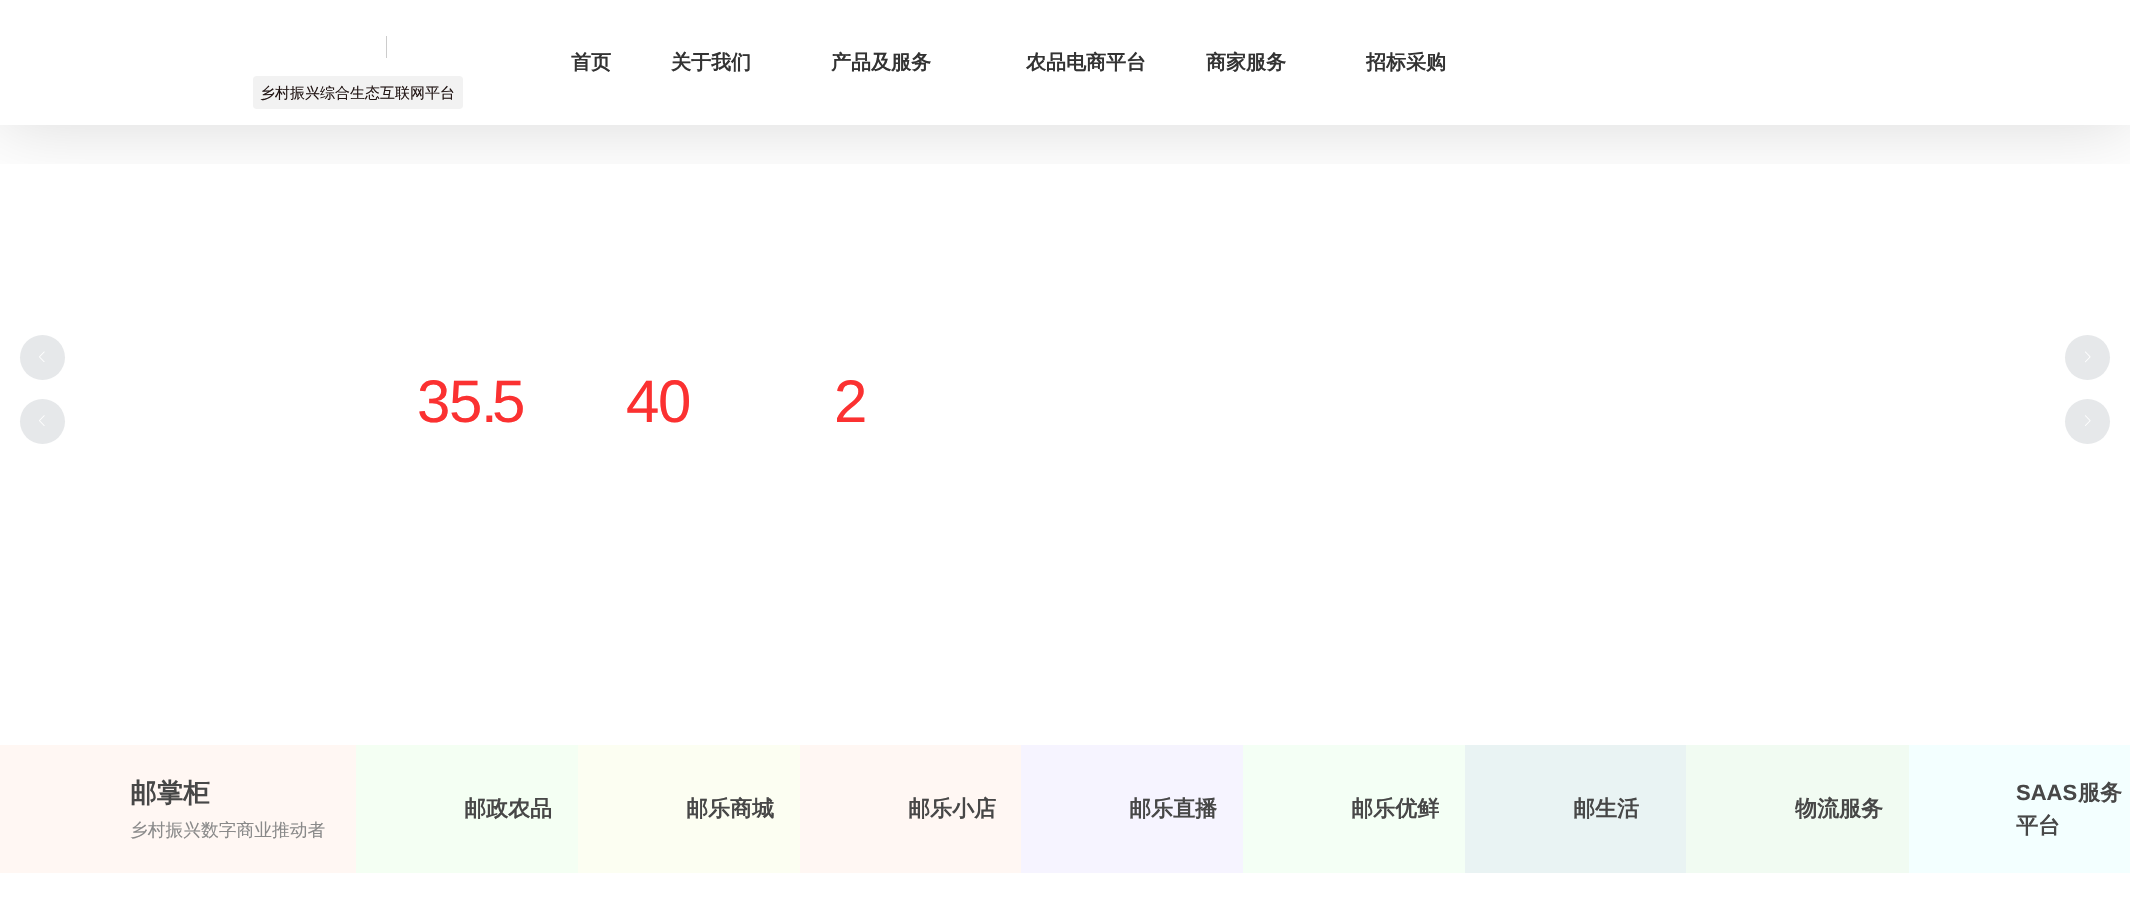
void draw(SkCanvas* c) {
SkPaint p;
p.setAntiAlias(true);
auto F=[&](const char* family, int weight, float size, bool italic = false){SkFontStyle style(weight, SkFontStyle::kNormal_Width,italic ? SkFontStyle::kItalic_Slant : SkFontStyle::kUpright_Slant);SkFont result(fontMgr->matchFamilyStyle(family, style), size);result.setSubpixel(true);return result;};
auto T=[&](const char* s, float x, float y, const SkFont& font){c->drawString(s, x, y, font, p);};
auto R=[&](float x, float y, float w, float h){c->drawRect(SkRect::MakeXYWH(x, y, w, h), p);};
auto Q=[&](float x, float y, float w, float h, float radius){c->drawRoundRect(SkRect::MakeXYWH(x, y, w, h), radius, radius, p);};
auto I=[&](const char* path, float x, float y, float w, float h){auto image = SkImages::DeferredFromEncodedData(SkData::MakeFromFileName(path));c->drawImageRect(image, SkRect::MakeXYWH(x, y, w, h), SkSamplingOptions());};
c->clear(0xffffffff);
c->save();
c->clipRect(SkRect::MakeXYWH(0,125,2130,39));
p.setColor(0x26000000);
p.setMaskFilter(SkMaskFilter::MakeBlur(kNormal_SkBlurStyle, 35.5));
c->drawRect(SkRect::MakeXYWH(0,0,2130,125),p);
p.setMaskFilter(nullptr);
c->restore();
auto f1 = F("WenQuanYi Zen Hei",700,20);
p.setColor(0xff333333);
T("首页",571,69,f1);
T("关于我们",671,69,f1);
T("产品及服务",831,69,f1);
T("农品电商平台",1026,69,f1);
T("商家服务",1206,69,f1);
T("招标采购",1366,69,f1);
p.setColor(0xffcccccc);
R(386,36,1,22);
p.setColor(0xfff2f2f2);
Q(253,76,210,33,4);
auto f2 = F("WenQuanYi Zen Hei",500,15);
p.setColor(0xff231716);
T("乡村振兴综合生态互联网平台",260,98,f2);
p.setColor(0xffe6e8ea);
c->drawCircle(42.5,357.5,22.5,p);
I("1.png",39,351,6,11);
c->drawCircle(2087.5,357.5,22.5,p);
I("2.png",2085,351,6,12);
c->drawCircle(42.5,421.5,22.5,p);
I("3.png",39,415,6,11);
auto f3 = F("Liberation Sans",400,60);
p.setColor(0xfffb3131);
T("3",417,422,f3);
T("5",449,422,f3);
T(".",481,422,f3);
T("5",492,422,f3);
T("4",626,422,f3);
T("0",658,422,f3);
T("2",834,422,f3);
p.setColor(0xffe6e8ea);
c->drawCircle(2087.5,421.5,22.5,p);
I("4.png",2085,415,6,11);
p.setColor(0xfffff7f3);
R(0,745,356,128);
auto f4 = F("WenQuanYi Zen Hei",700,26.5);
p.setColor(0xff474747);
T("邮掌柜",130,802,f4);
auto f5 = F("WenQuanYi Zen Hei",500,17.75);
p.setColor(0xff8a8a8a);
T("乡村振兴数字商业推动者",130,836,f5);
p.setColor(0xfff4fff3);
R(356,745,222,128);
auto f6 = F("WenQuanYi Zen Hei",700,22);
p.setColor(0xff474747);
T("邮政农品",464,816,f6);
p.setColor(0xfffcfef2);
R(578,745,222,128);
p.setColor(0xff474747);
T("邮乐商城",686,816,f6);
p.setColor(0xfffff7f3);
R(800,745,221,128);
p.setColor(0xff474747);
T("邮乐小店",908,816,f6);
p.setColor(0xfff6f4ff);
R(1021,745,222,128);
p.setColor(0xff474747);
T("邮乐直播",1129,816,f6);
p.setColor(0xfff4fff5);
R(1243,745,222,128);
p.setColor(0xff474747);
T("邮乐优鲜",1351,816,f6);
p.setColor(0xffe9f3f3);
R(1465,745,221,128);
p.setColor(0xff474747);
T("邮生活",1573,816,f6);
p.setColor(0xfff1fbf2);
R(1686,745,223,128);
p.setColor(0xff474747);
T("物流服务",1795,816,f6);
p.setColor(0xfff3ffff);
R(1909,745,221,128);
auto f7 = F("Liberation Sans",700,22);
p.setColor(0xff474747);
T("SAAS",2016,800,f7);
T("服务",2078,800,f6);
T("平台",2016,833,f6);
}
